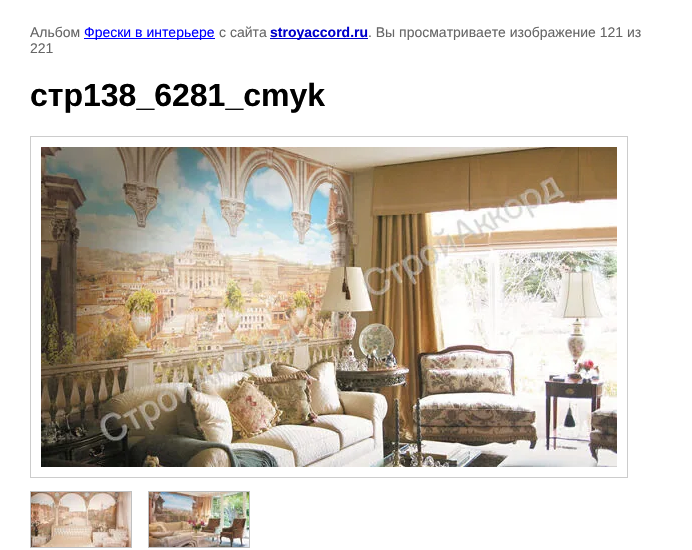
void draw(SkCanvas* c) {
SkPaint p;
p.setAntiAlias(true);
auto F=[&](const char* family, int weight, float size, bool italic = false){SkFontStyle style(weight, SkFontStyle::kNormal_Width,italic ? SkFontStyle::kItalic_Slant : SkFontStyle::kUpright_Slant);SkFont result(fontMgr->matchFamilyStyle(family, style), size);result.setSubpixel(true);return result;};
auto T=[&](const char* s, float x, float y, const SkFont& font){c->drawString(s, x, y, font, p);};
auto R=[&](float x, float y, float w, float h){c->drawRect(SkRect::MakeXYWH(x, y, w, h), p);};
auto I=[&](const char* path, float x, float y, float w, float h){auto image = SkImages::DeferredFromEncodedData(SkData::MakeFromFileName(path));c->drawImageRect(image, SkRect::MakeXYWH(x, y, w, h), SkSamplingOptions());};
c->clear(0xffffffff);
auto f1 = F("Liberation Sans",400,14);
p.setColor(0xff666666);
T("Альбом",30,37,f1);
p.setColor(0xff0000ff);
R(84,38,131,1);
T("Фрески в интерьере",84,37,f1);
p.setColor(0xff666666);
T("с сайта",219,37,f1);
p.setColor(0xff0000cc);
R(270,38,98,1);
auto f2 = F("Liberation Sans",700,14);
T("stroyaccord.ru",270,37,f2);
p.setColor(0xff666666);
T(". Вы просматриваете изображение 121 из",368,37,f1);
T("221",30,53,f1);
auto f3 = F("Liberation Sans",700,32);
p.setColor(0xff000000);
T("стр138_6281_cmyk",30,106,f3);
p.setStroke(true);
p.setStrokeWidth(1);
p.setColor(0xffcccccc);
c->drawRect(SkRect::MakeXYWH(30.5,136.5,597,341),p);
I("1.png",41,147,576,320);
p.setColor(0xffc0c0c0);
c->drawRect(SkRect::MakeXYWH(30.5,491.5,101,56),p);
I("2.png",31,492,100,55);
c->drawRect(SkRect::MakeXYWH(148.5,491.5,101,56),p);
I("3.png",149,492,100,55);
}
